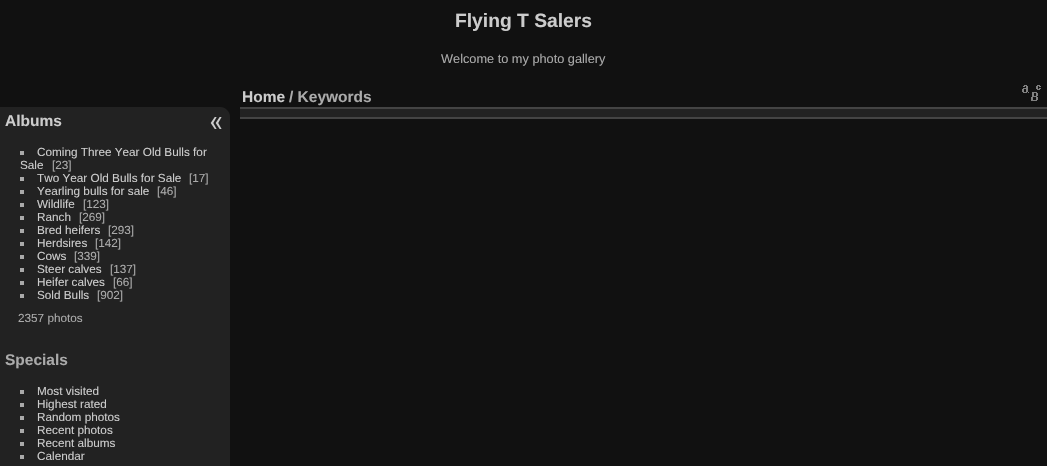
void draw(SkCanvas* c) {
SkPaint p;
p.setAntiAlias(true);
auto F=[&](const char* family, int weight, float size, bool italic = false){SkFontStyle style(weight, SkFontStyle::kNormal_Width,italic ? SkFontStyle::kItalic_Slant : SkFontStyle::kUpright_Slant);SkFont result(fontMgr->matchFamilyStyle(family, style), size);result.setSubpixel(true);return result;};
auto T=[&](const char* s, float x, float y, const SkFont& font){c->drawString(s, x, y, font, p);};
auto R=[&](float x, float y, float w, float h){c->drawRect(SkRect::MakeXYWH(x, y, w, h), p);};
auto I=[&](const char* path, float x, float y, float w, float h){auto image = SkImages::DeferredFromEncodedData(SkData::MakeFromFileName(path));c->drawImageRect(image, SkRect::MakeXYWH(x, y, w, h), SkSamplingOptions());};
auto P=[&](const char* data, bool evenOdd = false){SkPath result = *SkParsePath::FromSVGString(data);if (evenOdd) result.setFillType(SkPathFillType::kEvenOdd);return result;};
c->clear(0xff111111);
auto f1 = F("Liberation Sans",700,19.25);
p.setColor(0xffcccccc);
T("Flying T Salers",455,27,f1);
auto f2 = F("Liberation Sans",400,12.75);
p.setColor(0xffaaaaaa);
T("Welcome to my photo gallery",441,63,f2);
p.setColor(0xff222222);
R(240,109,807,8);
p.setColor(0xff444444);
R(240,117,807,2);
R(240,107,807,2);
auto f3 = F("Liberation Sans",700,15.5);
p.setColor(0xffcccccc);
T("Home",242,102,f3);
p.setColor(0xffaaaaaa);
T("/ Keywords",289,102,f3);
I("1.png",1022,85,19,16);
p.setColor(0xff222222);
c->drawPath(P("M0 107h220c5.5 0 10 4.5 10 10v349c0 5.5-4.5 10-10 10h-220z"),p);
p.setColor(0xffcccccc);
T("Albums",5,126,f3);
p.setColor(0xffaaaaaa);
R(20,151,4,4);
auto f4 = F("Liberation Sans",400,11.75);
p.setColor(0xffcccccc);
T("Coming Three Year Old Bulls for",37,156,f4);
T("Sale",20,169,f4);
p.setColor(0xffaaaaaa);
T("[23]",52,169,f4);
R(20,177,4,4);
p.setColor(0xffcccccc);
T("Two Year Old Bulls for Sale",37,182,f4);
p.setColor(0xffaaaaaa);
T("[17]",189,182,f4);
R(20,190,4,4);
p.setColor(0xffcccccc);
T("Yearling bulls for sale",37,195,f4);
p.setColor(0xffaaaaaa);
T("[46]",157,195,f4);
R(20,203,4,4);
p.setColor(0xffcccccc);
T("Wildlife",37,208,f4);
p.setColor(0xffaaaaaa);
T("[123]",83,208,f4);
R(20,216,4,4);
p.setColor(0xffcccccc);
T("Ranch",37,221,f4);
p.setColor(0xffaaaaaa);
T("[269]",79,221,f4);
R(20,229,4,4);
p.setColor(0xffcccccc);
T("Bred heifers",37,234,f4);
p.setColor(0xffaaaaaa);
T("[293]",108,234,f4);
R(20,242,4,4);
p.setColor(0xffcccccc);
T("Herdsires",37,247,f4);
p.setColor(0xffaaaaaa);
T("[142]",95,247,f4);
R(20,255,4,4);
p.setColor(0xffcccccc);
T("Cows",37,260,f4);
p.setColor(0xffaaaaaa);
T("[339]",74,260,f4);
R(20,268,4,4);
p.setColor(0xffcccccc);
T("Steer calves",37,273,f4);
p.setColor(0xffaaaaaa);
T("[137]",110,273,f4);
R(20,281,4,4);
p.setColor(0xffcccccc);
T("Heifer calves",37,286,f4);
p.setColor(0xffaaaaaa);
T("[66]",113,286,f4);
R(20,294,4,4);
p.setColor(0xffcccccc);
T("Sold Bulls",37,299,f4);
p.setColor(0xffaaaaaa);
T("[902]",97,299,f4);
T("2357 photos",18,322,f4);
T("Specials",5,365,f3);
R(20,390,4,4);
p.setColor(0xffcccccc);
T("Most visited",37,395,f4);
p.setColor(0xffaaaaaa);
R(20,403,4,4);
p.setColor(0xffcccccc);
T("Highest rated",37,408,f4);
p.setColor(0xffaaaaaa);
R(20,416,4,4);
p.setColor(0xffcccccc);
T("Random photos",37,421,f4);
p.setColor(0xffaaaaaa);
R(20,429,4,4);
p.setColor(0xffcccccc);
T("Recent photos",37,434,f4);
p.setColor(0xffaaaaaa);
R(20,442,4,4);
p.setColor(0xffcccccc);
T("Recent albums",37,447,f4);
p.setColor(0xffaaaaaa);
R(20,455,4,4);
p.setColor(0xffcccccc);
T("Calendar",37,460,f4);
I("2.png",210,117,12,12);
}
